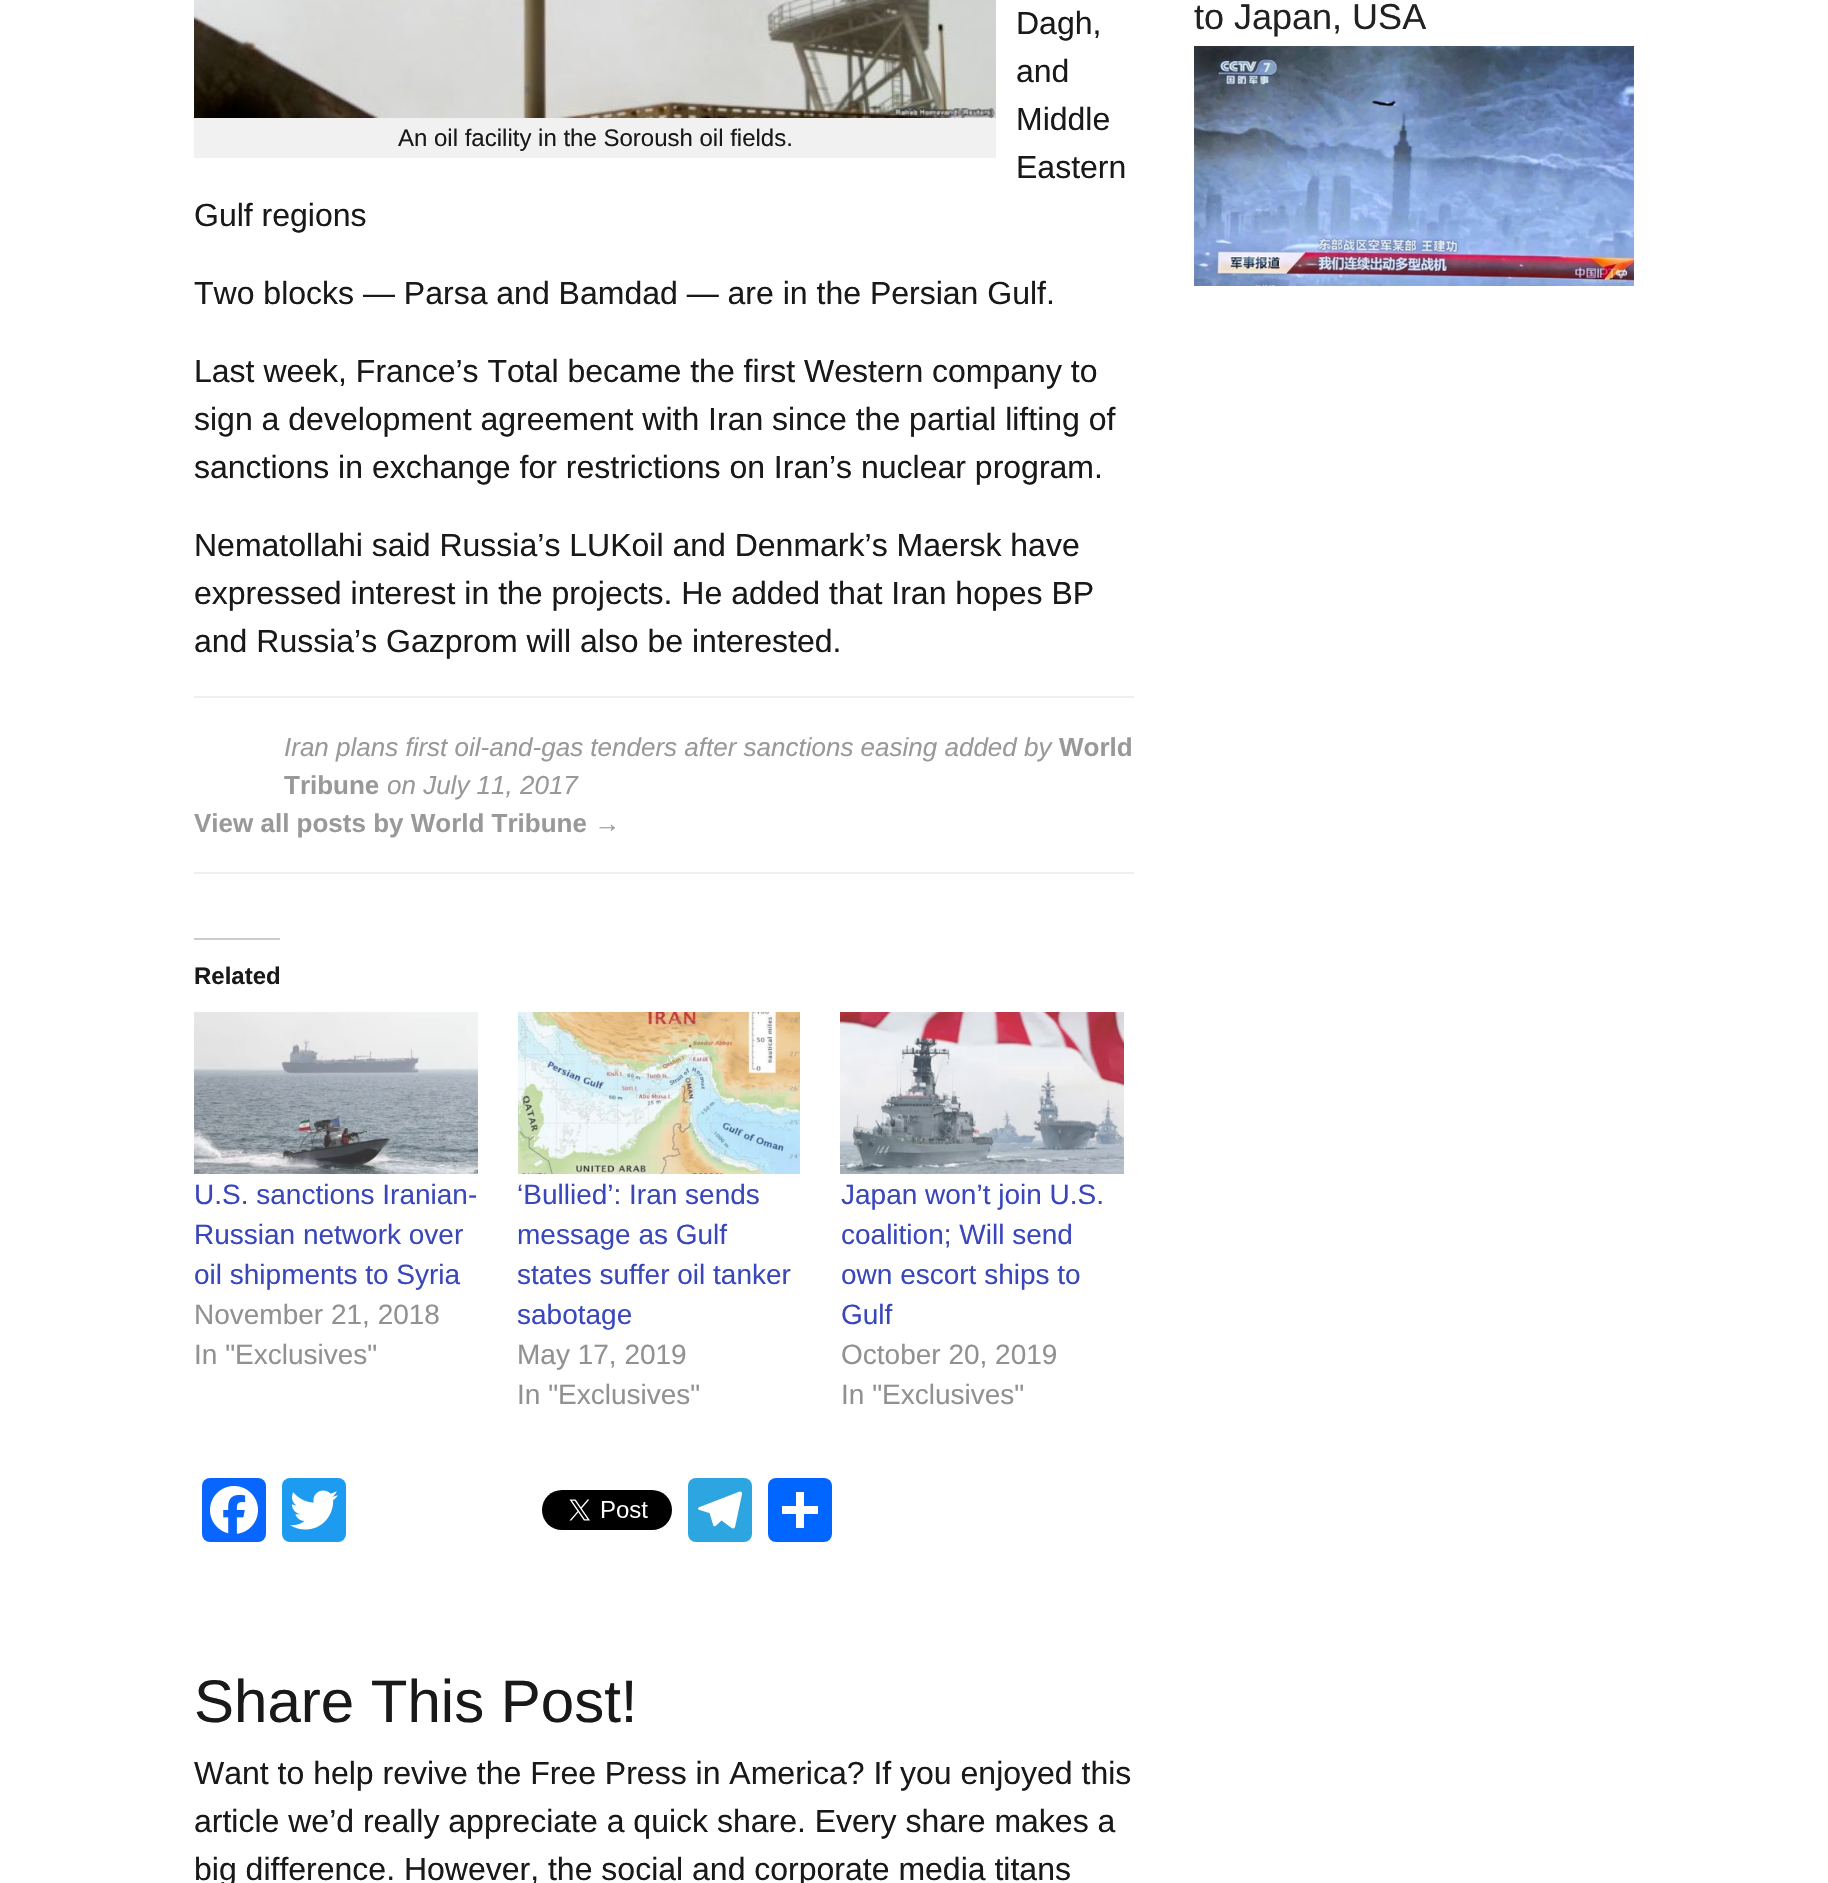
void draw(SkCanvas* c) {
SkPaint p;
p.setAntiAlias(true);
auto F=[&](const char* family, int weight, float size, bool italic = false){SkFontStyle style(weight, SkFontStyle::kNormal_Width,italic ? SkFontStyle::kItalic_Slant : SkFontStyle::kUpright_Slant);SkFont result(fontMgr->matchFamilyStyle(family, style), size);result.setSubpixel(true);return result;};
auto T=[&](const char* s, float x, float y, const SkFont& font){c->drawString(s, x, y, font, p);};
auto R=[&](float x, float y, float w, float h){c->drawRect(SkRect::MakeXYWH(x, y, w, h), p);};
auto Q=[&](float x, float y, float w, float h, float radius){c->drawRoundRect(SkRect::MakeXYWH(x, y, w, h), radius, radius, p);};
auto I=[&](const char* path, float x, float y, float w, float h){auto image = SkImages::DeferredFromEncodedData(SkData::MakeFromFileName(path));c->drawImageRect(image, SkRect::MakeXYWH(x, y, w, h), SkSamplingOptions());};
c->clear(0xffffffff);
auto f1 = F("Liberation Sans",400,32);
p.setColor(0xff191919);
T("Dagh,",1016,34,f1);
T("and",1016,82,f1);
T("Middle",1016,130,f1);
T("Eastern",1016,178,f1);
T("Gulf regions",194,226,f1);
p.setColor(0xfff1f1f1);
R(194,118,802,40);
I("1.png",194,0,802,118);
auto f2 = F("Liberation Sans",400,24);
p.setColor(0xff191919);
T("An oil facility in the Soroush oil fields.",398,146,f2);
T("Two blocks — Parsa and Bamdad — are in the Persian Gulf.",194,304,f1);
T("Last week, France’s Total became the first Western company to",194,382,f1);
T("sign a development agreement with Iran since the partial lifting of",194,430,f1);
T("sanctions in exchange for restrictions on Iran’s nuclear program.",194,478,f1);
T("Nematollahi said Russia’s LUKoil and Denmark’s Maersk have",194,556,f1);
T("expressed interest in the projects. He added that Iran hopes BP",194,604,f1);
T("and Russia’s Gazprom will also be interested.",194,652,f1);
p.setColor(0xffefefef);
R(194,696,940,2);
R(194,872,940,2);
auto f3 = F("Liberation Sans",400,26,true);
p.setColor(0xff999999);
T("Iran plans first oil-and-gas tenders after sanctions easing added by",284,756,f3);
auto f4 = F("Liberation Sans",700,26);
T("World",1059,756,f4);
T("Tribune",284,794,f4);
T("on July 11, 2017",387,794,f3);
T("View all posts by World Tribune →",194,832,f4);
p.setColor(0xffcccccc);
R(194,938,86,2);
auto f5 = F("Liberation Sans",700,24);
p.setColor(0xff191919);
T("Related",194,984,f5);
I("2.png",194,1012,284,162);
auto f6 = F("Liberation Sans",400,28);
p.setColor(0xff3a47bb);
T("U.S. sanctions Iranian-",194,1204,f6);
T("Russian network over",194,1244,f6);
T("oil shipments to Syria",194,1284,f6);
p.setColor(0xff919191);
T("November 21, 2018",194,1324,f6);
T("In \"Exclusives\"",194,1364,f6);
I("3.png",518,1012,282,162);
p.setColor(0xff3a47bb);
T("‘Bullied’: Iran sends",517,1204,f6);
T("message as Gulf",517,1244,f6);
T("states suffer oil tanker",517,1284,f6);
T("sabotage",517,1324,f6);
p.setColor(0xff919191);
T("May 17, 2019",517,1364,f6);
T("In \"Exclusives\"",517,1404,f6);
I("4.png",840,1012,284,162);
p.setColor(0xff3a47bb);
T("Japan won’t join U.S.",841,1204,f6);
T("coalition; Will send",841,1244,f6);
T("own escort ships to",841,1284,f6);
T("Gulf",841,1324,f6);
p.setColor(0xff919191);
T("October 20, 2019",841,1364,f6);
T("In \"Exclusives\"",841,1404,f6);
p.setColor(0xff0866ff);
Q(202,1478,64,64,8);
I("5.png",210,1486,48,48);
p.setColor(0xff1d9bf0);
Q(282,1478,64,64,8);
I("6.png",290,1490,48,40);
I("7.png",542,1490,130,40);
p.setColor(0xff2ca5e0);
Q(688,1478,64,64,8);
I("8.png",698,1491,44,38);
p.setColor(0xff0166ff);
Q(768,1478,64,64,8);
p.setColor(0xffffffff);
R(796,1492,8,36);
R(782,1506,36,8);
auto f7 = F("Liberation Sans",400,60);
p.setColor(0xff191919);
T("Share This Post!",194,1722,f7);
T("Want to help revive the Free Press in America? If you enjoyed this",194,1784,f1);
T("article we’d really appreciate a quick share. Every share makes a",194,1832,f1);
T("big difference. However, the social and corporate media titans",194,1880,f1);
auto f8 = F("Liberation Sans",400,36);
p.setColor(0xff222222);
T("to Japan, USA",1194,29,f8);
I("9.png",1194,46,440,240);
}
